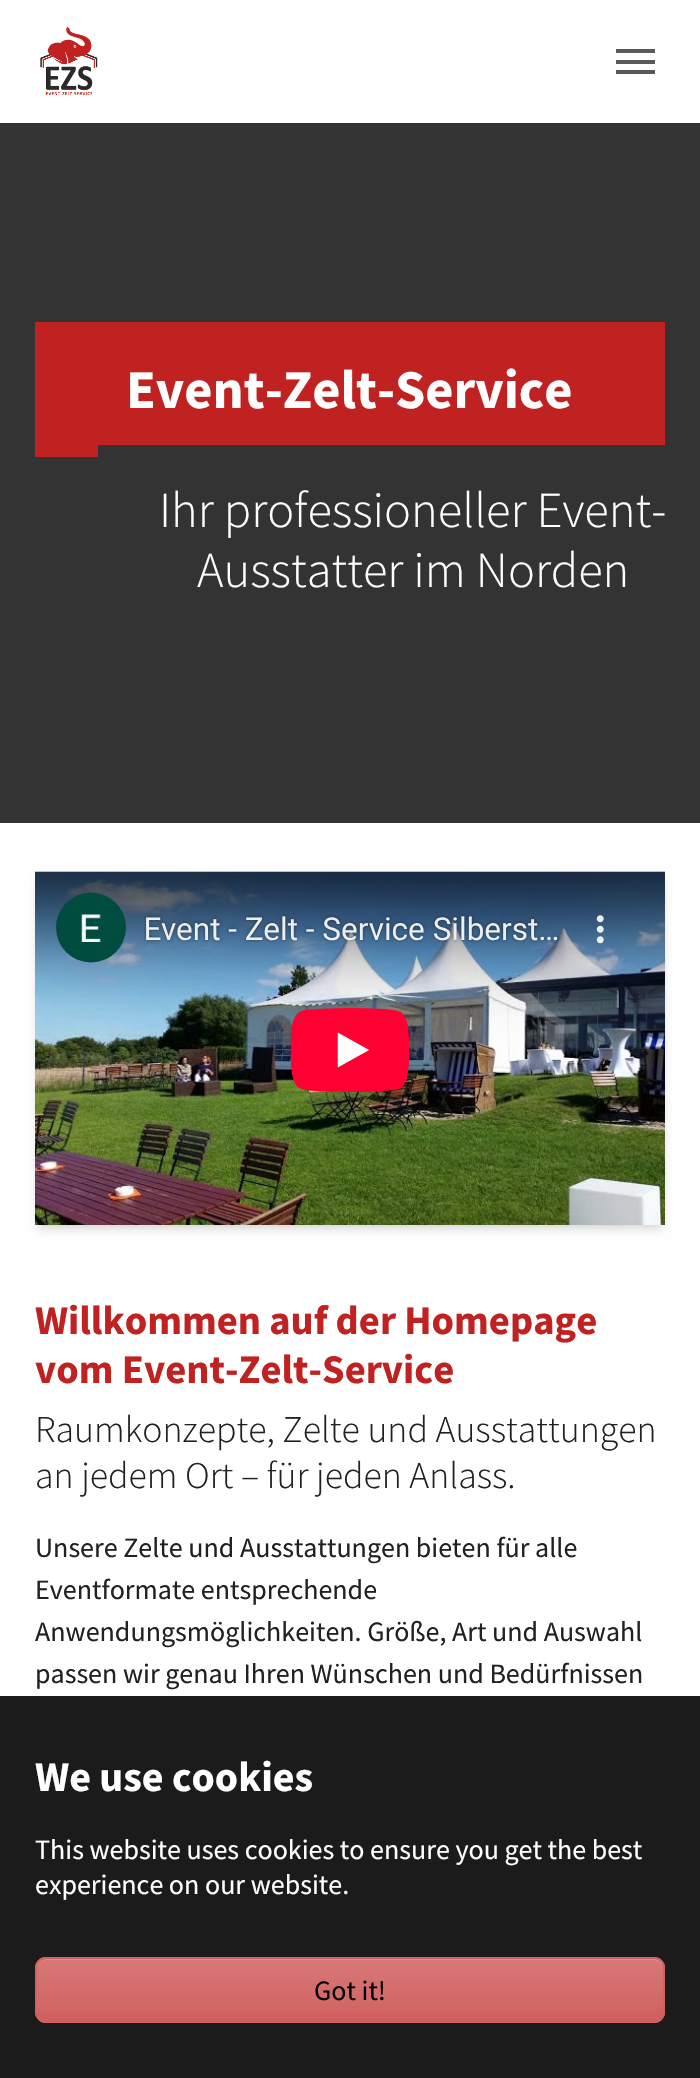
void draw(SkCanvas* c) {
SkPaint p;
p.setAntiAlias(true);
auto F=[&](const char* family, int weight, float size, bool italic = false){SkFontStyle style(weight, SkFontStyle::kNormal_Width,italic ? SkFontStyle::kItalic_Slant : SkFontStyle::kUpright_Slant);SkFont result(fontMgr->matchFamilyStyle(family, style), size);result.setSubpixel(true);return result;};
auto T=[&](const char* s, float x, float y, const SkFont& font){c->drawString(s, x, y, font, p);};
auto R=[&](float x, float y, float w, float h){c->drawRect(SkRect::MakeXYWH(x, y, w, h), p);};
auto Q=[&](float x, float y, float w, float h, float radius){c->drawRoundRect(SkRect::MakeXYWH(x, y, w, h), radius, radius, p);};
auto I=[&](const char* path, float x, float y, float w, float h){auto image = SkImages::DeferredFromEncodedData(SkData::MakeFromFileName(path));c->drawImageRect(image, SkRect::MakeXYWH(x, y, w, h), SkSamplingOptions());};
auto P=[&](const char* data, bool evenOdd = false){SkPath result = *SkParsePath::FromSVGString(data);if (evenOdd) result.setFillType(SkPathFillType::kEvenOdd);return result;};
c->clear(0xffffffff);
I("1.png",40,27,58,68);
p.setColor(0xff595959);
R(616,60,39,4);
R(616,49,39,4);
R(616,70,39,4);
p.setColor(0xff333333);
R(0,123,700,700);
p.setColor(0xffc02221);
R(35,322,630,135);
auto f1 = F("Source Sans Pro",700,54.5);
p.setColor(0xffffffff);
T("Event-Zelt-Service",126,408,f1);
p.setColor(0xff333333);
R(98,445,567,12);
auto f2 = F("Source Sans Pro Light",300,50.4);
p.setColor(0xffffffff);
T("Ihr professioneller Event-",159,527,f2);
T("Ausstatter im Norden",197,587,f2);
p.setColor(0x1a000000);
p.setMaskFilter(SkMaskFilter::MakeBlur(kNormal_SkBlurStyle, 3.5));
c->drawRect(SkRect::MakeXYWH(39,879,623,346),p);
p.setMaskFilter(nullptr);
p.setMaskFilter(SkMaskFilter::MakeBlur(kNormal_SkBlurStyle, 5));
c->drawRect(SkRect::MakeXYWH(37,880,626,350),p);
p.setMaskFilter(nullptr);
I("2.png",35,871,630,354);
auto f3 = F("Source Sans Pro",700,40.6);
p.setColor(0xffc02221);
T("Willkommen auf der Homepage",35,1334,f3);
T("vom Event-Zelt-Service",35,1383,f3);
auto f4 = F("Source Sans Pro Light",300,37.75);
p.setColor(0xff212121);
T("Raumkonzepte, Zelte und Ausstattungen",35,1442,f4);
T("an jedem Ort – für jeden Anlass.",35,1488,f4);
auto f5 = F("Source Sans Pro",400,28);
T("Unsere Zelte und Ausstattungen bieten für alle",35,1557,f5);
T("Eventformate entsprechende",35,1599,f5);
T("Anwendungsmöglichkeiten. Größe, Art und Auswahl",35,1641,f5);
T("passen wir genau Ihren Wünschen und Bedürfnissen",35,1683,f5);
p.setColor(0xff1b1b1b);
R(0,1696,700,382);
auto f6 = F("Source Sans Pro",700,42);
p.setColor(0xffffffff);
T("We use cookies",35,1791,f6);
T("This website uses cookies to ensure you get the best",35,1859,f5);
T("experience on our website.",35,1894,f5);
p.setColor(0xffd16160);
Q(35,1957,630,66,11);
c->save();
c->clipPath(P("M46 1957h608c6 0 11 5 11 11v44c0 6-5 11-11 11h-608c-6 0-11-5-11-11v-44c0-6 5-11 11-11z"),true);
{
const SkColor colors[] = {0x26ffffff,0x00ffffff};
const float stops[] = {0,1};
const SkPoint ends[] = {{350,1958}, {350,2021}};
p.setShader(SkGradientShader::MakeLinear(ends, colors, stops, 2, SkTileMode::kClamp));
p.setAlpha(255);
}
R(35,1958,630,54);
c->restore();
p.setShader(nullptr);
p.setColor(0xffde8c8c);
c->drawPath(P("M46 1960h608c5 0 9 4 9 9c0-6-3-11-9-11h-608c-6 0-9 5-9 11c0-5 4-9 9-9z"),p);
p.setStroke(true);
p.setStrokeWidth(2);
p.setColor(0xffd16160);
c->drawRoundRect(SkRect::MakeXYWH(36,1958,628,64),10,10,p);
p.setStroke(false);
p.setColor(0xff000000);
T("Got it!",314,2000,f5);
}
